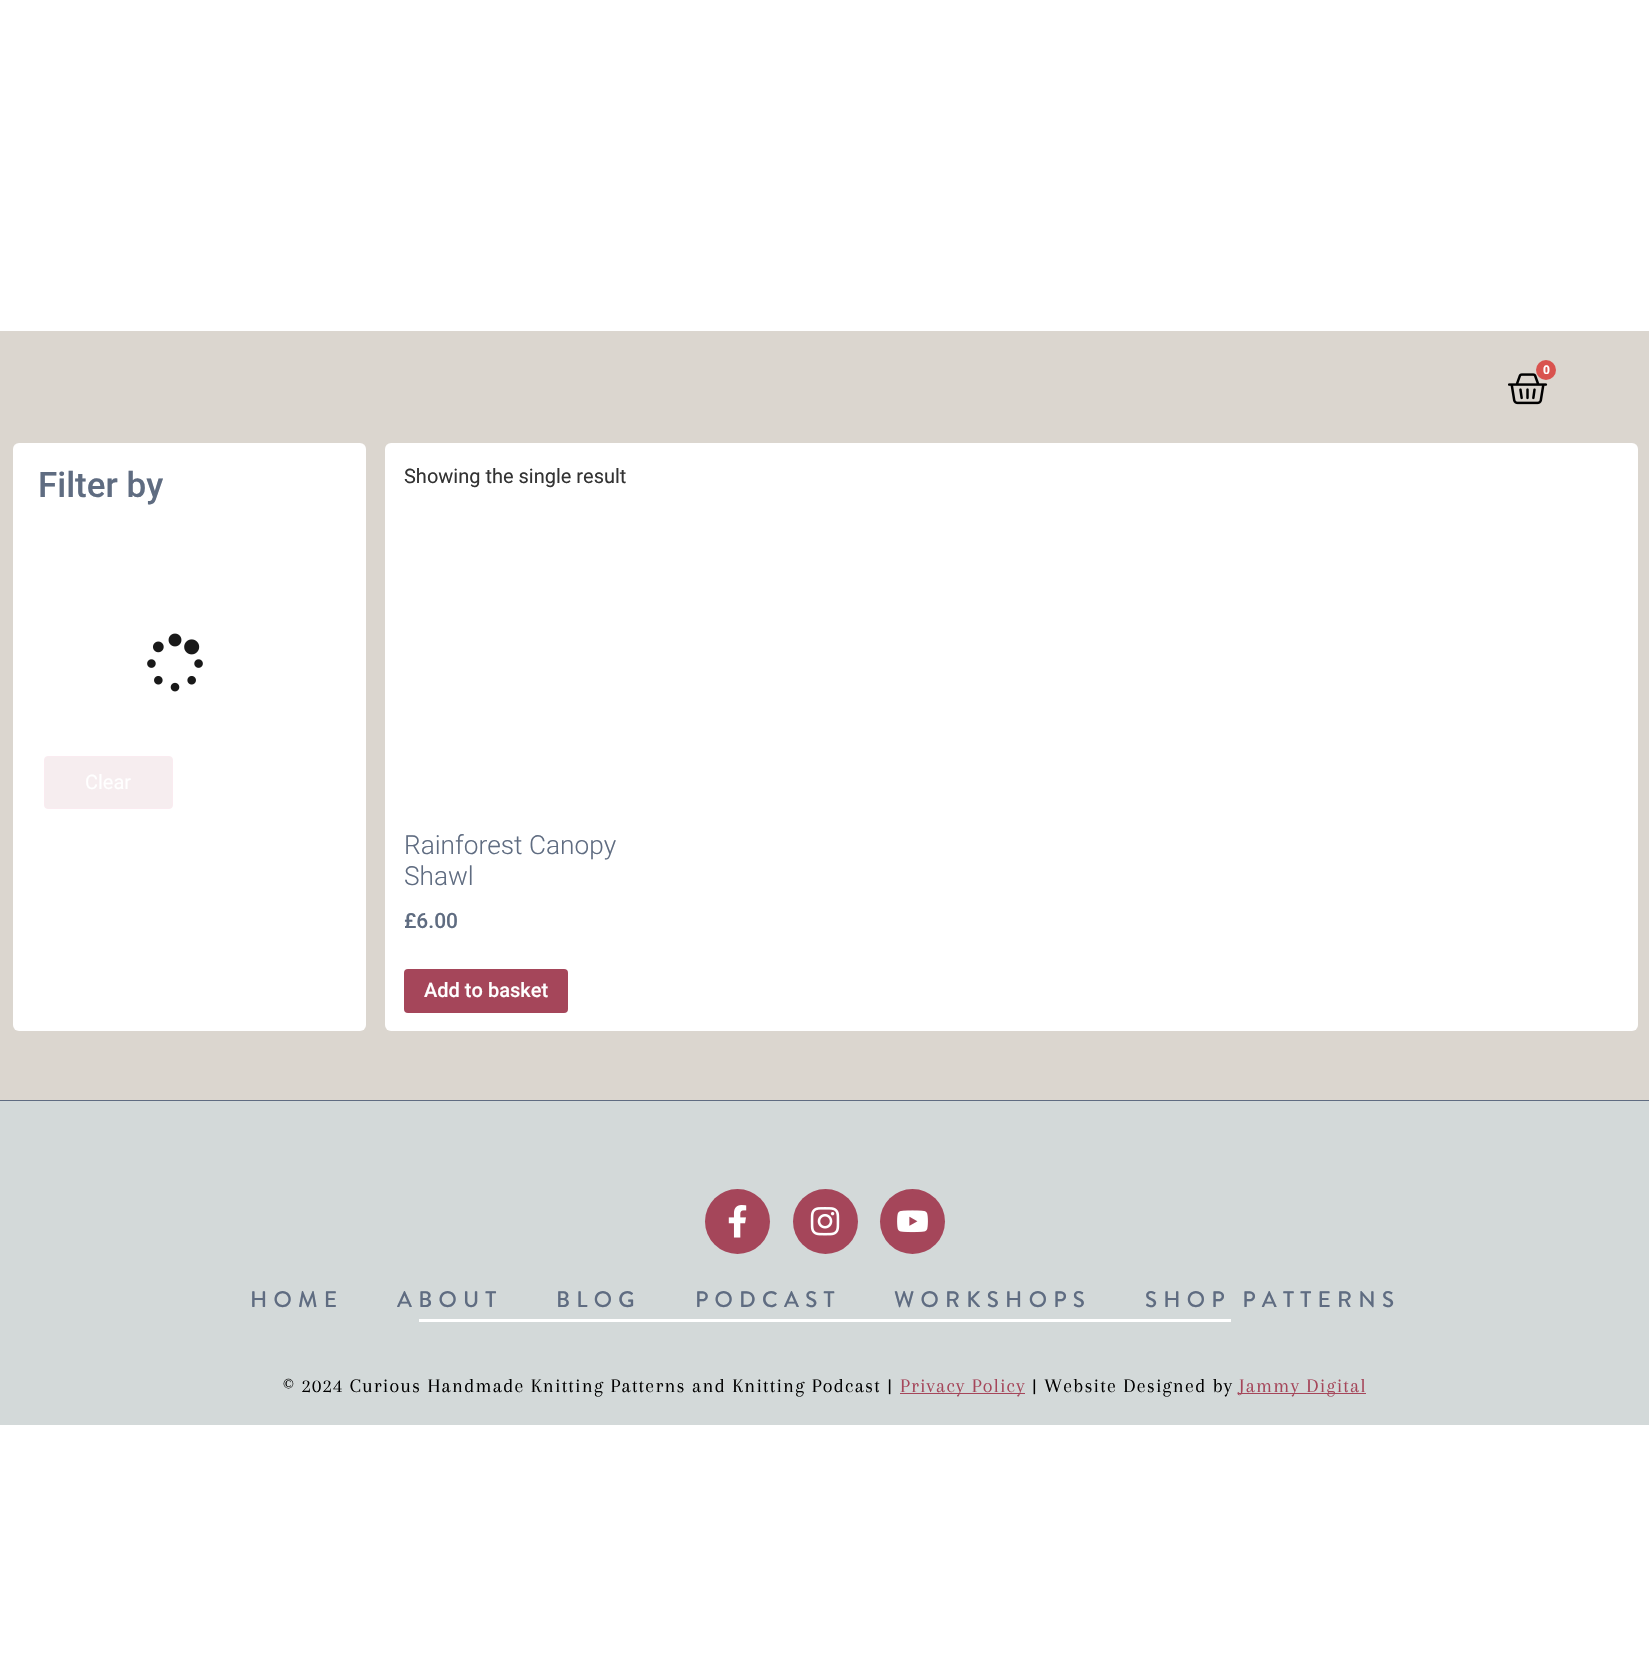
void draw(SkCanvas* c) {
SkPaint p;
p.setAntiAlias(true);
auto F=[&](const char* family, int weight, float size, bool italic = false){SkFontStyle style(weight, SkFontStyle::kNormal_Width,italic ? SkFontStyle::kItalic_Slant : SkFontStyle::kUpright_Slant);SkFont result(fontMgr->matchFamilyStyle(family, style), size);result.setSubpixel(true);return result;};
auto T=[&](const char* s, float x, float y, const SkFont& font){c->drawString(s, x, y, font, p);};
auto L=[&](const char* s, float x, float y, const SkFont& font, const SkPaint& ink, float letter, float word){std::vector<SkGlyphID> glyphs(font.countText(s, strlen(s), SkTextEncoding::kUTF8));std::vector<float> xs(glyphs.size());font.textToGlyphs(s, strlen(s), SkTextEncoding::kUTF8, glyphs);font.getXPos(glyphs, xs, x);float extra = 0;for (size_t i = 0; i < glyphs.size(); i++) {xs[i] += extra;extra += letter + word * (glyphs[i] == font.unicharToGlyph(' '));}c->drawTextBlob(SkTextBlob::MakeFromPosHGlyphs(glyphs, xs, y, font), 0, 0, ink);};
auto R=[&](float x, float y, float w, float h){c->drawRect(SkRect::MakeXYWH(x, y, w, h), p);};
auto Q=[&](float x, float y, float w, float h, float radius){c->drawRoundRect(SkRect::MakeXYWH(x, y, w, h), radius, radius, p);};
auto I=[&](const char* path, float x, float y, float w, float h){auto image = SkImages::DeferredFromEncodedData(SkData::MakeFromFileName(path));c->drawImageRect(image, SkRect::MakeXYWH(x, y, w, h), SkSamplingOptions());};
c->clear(0xffffffff);
p.setColor(0xffdbd6cf);
R(0,331,1649,769);
I("1.png",1508,373,40,32);
p.setColor(0xffd9534f);
c->drawCircle(1546,370,10,p);
auto f1 = F("Roboto",700,12);
p.setColor(0xffffffff);
T("0",1543,374,f1);
p.setColor(0xff5f6c81);
R(0,1100,1649,1);
p.setColor(0xffffffff);
Q(13,443,353,588,6);
auto f2 = F("Roboto",500,35);
p.setColor(0xff5f6c81);
T("Filter by",38,497,f2);
I("2.png",147,633,56,59);
p.setColor(0xfff6edef);
c->drawRoundRect(SkRect::MakeXYWH(44.5,756.5,128,52),3.5,3.5,p);
p.setStroke(true);
p.setStrokeWidth(1);
p.setColor(0xfffaebf0);
c->drawRoundRect(SkRect::MakeXYWH(44.5,756.5,128,52),3.5,3.5,p);
auto f3 = F("Roboto",400,20);
p.setStroke(false);
p.setColor(0xffffffff);
T("Clear",85,789,f3);
Q(385,443,1253,588,6);
p.setColor(0xff333333);
T("Showing the single result",404,483,f3);
auto f4 = F("Roboto",300,26.25);
p.setColor(0xff5f6c81);
T("Rainforest Canopy",404,854,f4);
T("Shawl",404,885,f4);
auto f5 = F("Roboto",500,21);
T("£6.00",404,928,f5);
p.setColor(0xffa5465a);
Q(404,969,164,44,4);
auto f6 = F("Roboto",500,20);
p.setColor(0xffffffff);
T("Add to basket",424,997,f6);
p.setColor(0xffd3d9d9);
R(0,1101,1649,324);
p.setColor(0xffa5465a);
c->drawCircle(737.5,1221.5,32.5,p);
I("3.png",728,1205,19,33);
c->drawCircle(825.5,1221.5,32.5,p);
I("4.png",810,1207,30,29);
c->drawCircle(912.5,1221.5,32.5,p);
I("5.png",897,1210,31,23);
auto f7 = F("Brandon Grotesque",500,22.5);
p.setColor(0xff5f6c81);
L("HOME",250,1307,f7,p,6.25,0);
L("ABOUT",397,1307,f7,p,6.25,0);
L("BLOG",556,1307,f7,p,6.25,0);
L("PODCAST",695,1307,f7,p,6.25,0);
L("WORKSHOPS",894,1307,f7,p,6.25,0);
L("SHOP PATTERNS",1145,1307,f7,p,6.25,0);
p.setColor(0xffffffff);
R(419,1319,812,3);
auto f8 = F("Arapey",400,20);
p.setColor(0xff000000);
L("© 2024 Curious Handmade Knitting Patterns and Knitting Podcast |",283,1392,f8,p,1.25,0);
p.setColor(0xffa5465a);
R(900,1393,125,1);
L("Privacy Policy",900,1392,f8,p,1.25,0);
p.setColor(0xff000000);
L("| Website Designed by",1032,1392,f8,p,1.25,0);
p.setColor(0xffa5465a);
R(1239,1393,127,1);
L("Jammy Digital",1239,1392,f8,p,1.25,0);
}
